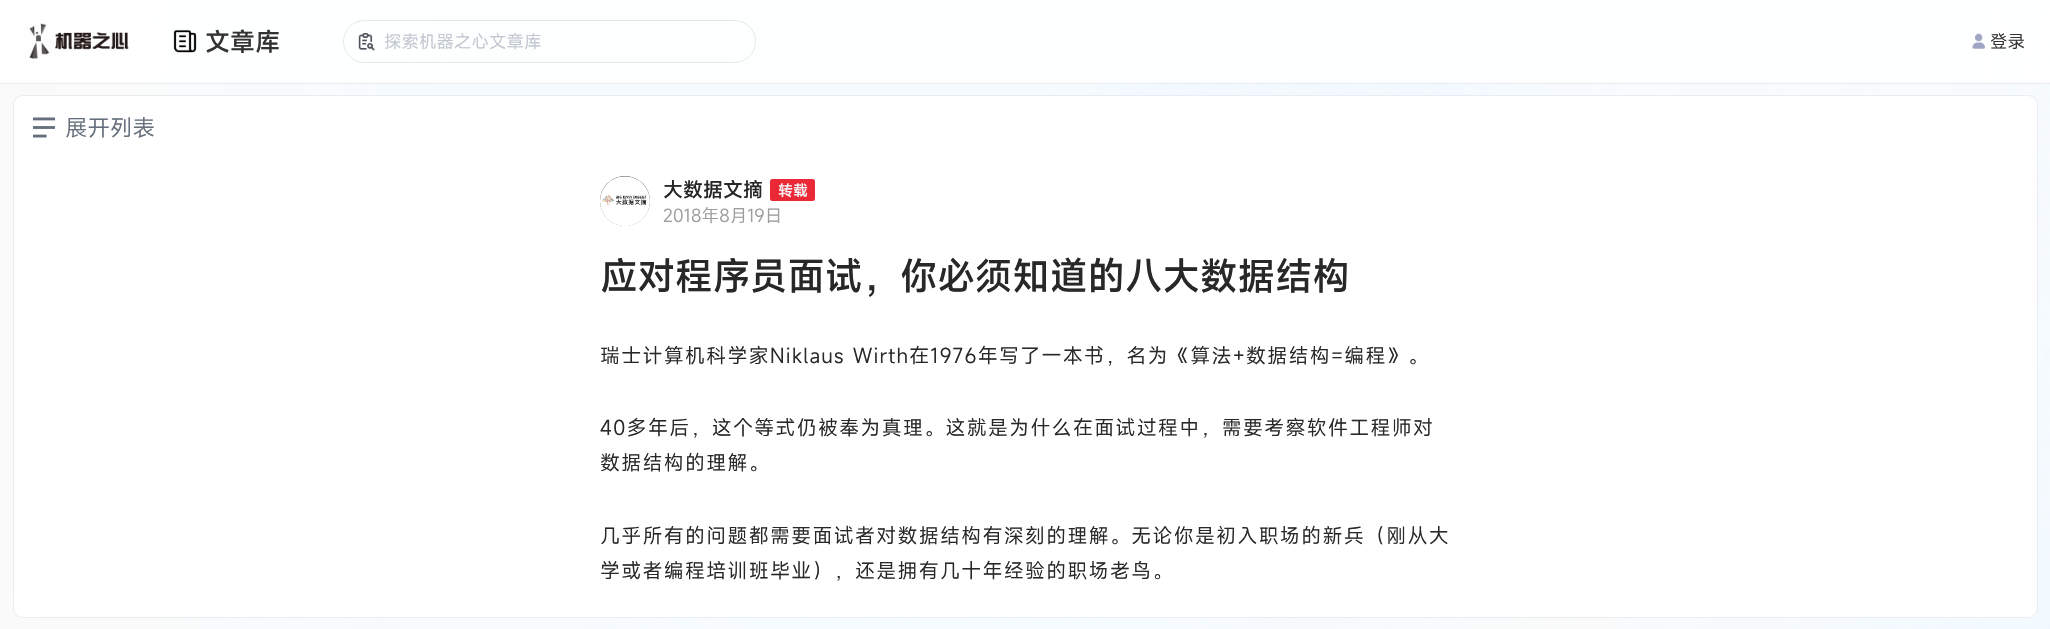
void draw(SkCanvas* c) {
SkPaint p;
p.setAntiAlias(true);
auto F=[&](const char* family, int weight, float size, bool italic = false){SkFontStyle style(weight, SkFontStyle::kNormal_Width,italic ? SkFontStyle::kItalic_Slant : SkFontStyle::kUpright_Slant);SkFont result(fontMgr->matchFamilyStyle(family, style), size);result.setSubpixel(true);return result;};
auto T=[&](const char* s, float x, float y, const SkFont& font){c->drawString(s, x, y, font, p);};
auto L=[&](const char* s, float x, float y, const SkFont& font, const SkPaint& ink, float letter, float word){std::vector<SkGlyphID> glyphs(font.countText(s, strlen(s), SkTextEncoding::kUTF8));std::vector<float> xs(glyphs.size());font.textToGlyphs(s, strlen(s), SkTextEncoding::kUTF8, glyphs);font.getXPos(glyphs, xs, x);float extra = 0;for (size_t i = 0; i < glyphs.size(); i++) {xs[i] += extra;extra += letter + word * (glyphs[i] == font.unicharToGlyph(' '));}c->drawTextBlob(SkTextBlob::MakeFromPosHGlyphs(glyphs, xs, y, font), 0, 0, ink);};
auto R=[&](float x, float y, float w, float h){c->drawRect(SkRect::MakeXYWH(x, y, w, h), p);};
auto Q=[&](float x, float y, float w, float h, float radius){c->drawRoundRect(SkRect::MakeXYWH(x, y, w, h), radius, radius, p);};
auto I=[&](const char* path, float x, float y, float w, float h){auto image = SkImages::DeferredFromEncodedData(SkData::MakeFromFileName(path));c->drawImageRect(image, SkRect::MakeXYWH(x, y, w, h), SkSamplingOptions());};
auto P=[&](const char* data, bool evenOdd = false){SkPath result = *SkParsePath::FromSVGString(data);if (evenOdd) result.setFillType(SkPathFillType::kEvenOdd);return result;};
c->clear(0xffffffff);
I("1.png",0,0,2050,629);
p.setColor(0xffebecf1);
R(0,82,2050,2);
p.setColor(0xccffffff);
R(0,0,2050,83);
I("2.png",29,23,100,36);
I("3.png",173,29,24,24);
auto f1 = F("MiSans",500,25);
p.setColor(0xff333333);
T("文章库",205,51,f1);
p.setStroke(true);
p.setStrokeWidth(1);
p.setColor(0xffe6e7ed);
c->drawRoundRect(SkRect::MakeXYWH(343.5,20.5,412,42),21,21,p);
I("4.png",358,33,17,18);
auto f2 = F("MiSans",400,17.5);
p.setStroke(false);
p.setColor(0xffc1c7d0);
T("探索机器之心文章库",384,48,f2);
I("5.png",1972,33,13,16);
p.setColor(0xff333333);
T("登录",1990,48,f2);
p.setColor(0xffffffff);
c->drawRoundRect(SkRect::MakeXYWH(13.5,95.5,2024,522),9.5,9.5,p);
p.setStroke(true);
p.setColor(0xffebecf1);
c->drawRoundRect(SkRect::MakeXYWH(13.5,95.5,2024,522),9.5,9.5,p);
p.setStroke(false);
p.setColor(0xffffffff);
c->drawPath(P("M24 96h152v67h-152c-5.5 0-10-4.5-10-10v-47c0-5.5 4.5-10 10-10z"),p);
I("6.png",33,117,22,21);
auto f3 = F("MiSans",400,22.5);
p.setColor(0xff666f7d);
T("展开列表",65,136,f3);
p.setColor(0xff333333);
c->drawCircle(625,201,25,p);
I("7.png",600,176,50,50);
auto f4 = F("MiSans",500,20);
p.setColor(0xff282828);
T("大数据文摘",663,197,f4);
p.setColor(0xffeb2835);
Q(770,179,45,22,2.5);
auto f5 = F("MiSans",500,15);
p.setColor(0xfff6f6f6);
T("转载",778,196,f5);
p.setColor(0xff9d9d9d);
T("2018年8月19日",663,222,f2);
auto f6 = F("MiSans",500,37.5);
p.setColor(0xff282828);
T("应对程序员面试，你必须知道的八大数据结构",600,290,f6);
auto f7 = F("MiSans",400,20);
L("瑞士计算机科学家Niklaus Wirth在1976年写了一本书，名为《算法+数据结构=编程》。",600,363,f7,p,1.25,0);
L("40多年后，这个等式仍被奉为真理。这就是为什么在面试过程中，需要考察软件工程师对",600,435,f7,p,1.25,0);
L("数据结构的理解。",600,470,f7,p,1.25,0);
L("几乎所有的问题都需要面试者对数据结构有深刻的理解。无论你是初入职场的新兵（刚从大",600,543,f7,p,1.25,0);
L("学或者编程培训班毕业），还是拥有几十年经验的职场老鸟。",600,578,f7,p,1.25,0);
}
